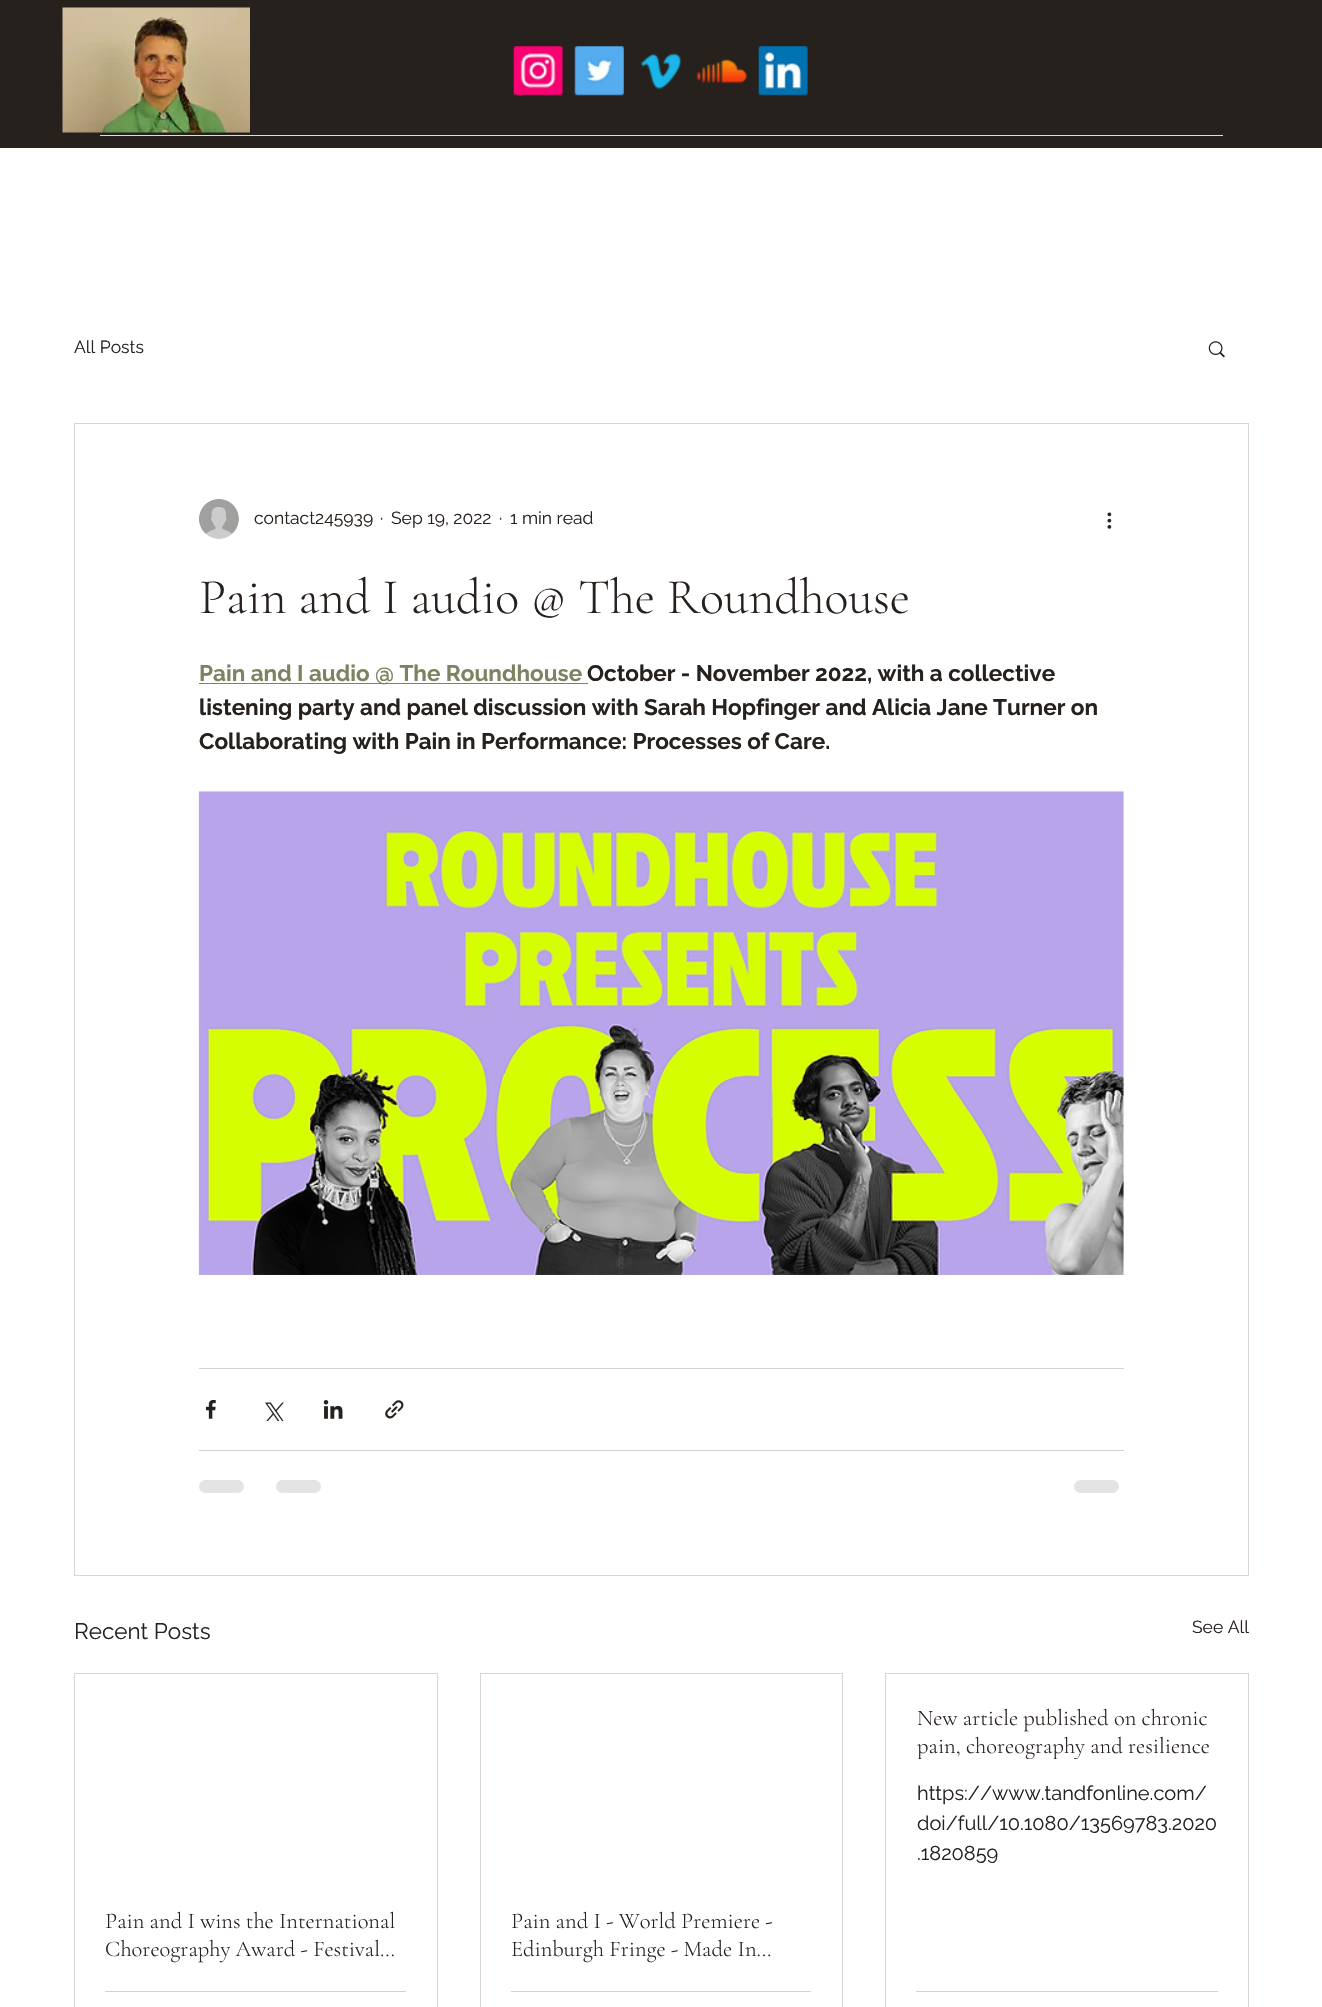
void draw(SkCanvas* c) {
SkPaint p;
p.setAntiAlias(true);
auto F=[&](const char* family, int weight, float size, bool italic = false){SkFontStyle style(weight, SkFontStyle::kNormal_Width,italic ? SkFontStyle::kItalic_Slant : SkFontStyle::kUpright_Slant);SkFont result(fontMgr->matchFamilyStyle(family, style), size);result.setSubpixel(true);return result;};
auto T=[&](const char* s, float x, float y, const SkFont& font){c->drawString(s, x, y, font, p);};
auto R=[&](float x, float y, float w, float h){c->drawRect(SkRect::MakeXYWH(x, y, w, h), p);};
auto Q=[&](float x, float y, float w, float h, float radius){c->drawRoundRect(SkRect::MakeXYWH(x, y, w, h), radius, radius, p);};
auto I=[&](const char* path, float x, float y, float w, float h){auto image = SkImages::DeferredFromEncodedData(SkData::MakeFromFileName(path));c->drawImageRect(image, SkRect::MakeXYWH(x, y, w, h), SkSamplingOptions());};
c->clear(0xffffffff);
p.setColor(0xff27211e);
R(0,0,1322,148);
I("1.png",62,7,188,126);
I("2.png",513,46,50,50);
I("3.png",574,46,50,50);
I("4.png",640,53,42,37);
I("5.png",696,59,51,25);
I("6.png",758,46,50,50);
p.setColor(0xffdfdedd);
R(100,135,1123,1);
auto f1 = F("Raleway",400,17.5);
p.setColor(0xff27211e);
T("All Posts",74,353,f1);
I("7.png",1208,341,17,17);
p.setStroke(true);
p.setStrokeWidth(1);
p.setColor(0xffdbd4d1);
c->drawRect(SkRect::MakeXYWH(74.5,423.5,1174,1152),p);
I("8.png",199,499,40,40);
p.setStroke(false);
p.setColor(0xff27211e);
T("contact245939",254,524,f1);
T("·",380,524,f1);
T("Sep 19, 2022",391,524,f1);
T("·",499,524,f1);
T("1 min read",510,524,f1);
I("9.png",1107,512,5,17);
auto f2 = F("Cormorant Garamond",300,50);
T("Pain and I audio @ The Roundhouse",199,613,f2);
p.setColor(0xff7d8260);
R(199,683,389,1);
auto f3 = F("Raleway",700,22.5);
T("Pain and I audio @ The Roundhouse",199,681,f3);
p.setColor(0xff27211e);
T("October - November 2022, with a collective",587,681,f3);
T("listening party and panel discussion with Sarah Hopfinger and Alicia Jane Turner on",199,715,f3);
T("Collaborating with Pain in Performance: Processes of Care.",199,749,f3);
I("10.png",198,791,926,484);
p.setColor(0xffd4d3d2);
R(199,1368,925,1);
I("11.png",206,1400,10,19);
I("12.png",265,1402,19,19);
I("13.png",323,1400,20,19);
I("14.png",385,1400,19,19);
R(199,1450,925,1);
p.setColor(0xffe5e4e4);
Q(199,1480,45,13,6.5);
Q(276,1480,45,13,6.5);
Q(1074,1480,45,13,6.5);
auto f4 = F("Raleway",400,22.5);
p.setColor(0xff27211e);
T("Recent Posts",74,1639,f4);
T("See All",1192,1633,f1);
p.setStroke(true);
p.setColor(0xffdbd4d1);
c->drawRect(SkRect::MakeXYWH(885.5,1673.5,363,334),p);
auto f5 = F("Cormorant Garamond",300,22.5);
p.setStroke(false);
p.setColor(0xff27211e);
T("New article published on chronic",917,1725,f5);
c->save();
c->clipRect(SkRect::MakeXYWH(916,1704,302,55));
T("pain, choreography and resilience",917,1753,f5);
c->restore();
auto f6 = F("Raleway",400,20);
T("https://www.tandfonline.com/",917,1800,f6);
T("doi/full/10.1080/13569783.2020",917,1830,f6);
T(".1820859",917,1860,f6);
p.setColor(0xffd4d3d2);
R(916,1991,302,1);
p.setStroke(true);
p.setColor(0xffdbd4d1);
c->drawRect(SkRect::MakeXYWH(74.5,1673.5,363,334),p);
p.setStroke(false);
p.setColor(0xff27211e);
T("Pain and I wins the International",105,1928,f5);
T("Choreography Award - Festival…",105,1956,f5);
p.setColor(0xffd4d3d2);
R(105,1991,301,1);
p.setStroke(true);
p.setColor(0xffdbd4d1);
c->drawRect(SkRect::MakeXYWH(480.5,1673.5,362,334),p);
p.setStroke(false);
p.setColor(0xff27211e);
T("Pain and I - World Premiere -",511,1928,f5);
T("Edinburgh Fringe - Made In…",511,1956,f5);
p.setColor(0xffd4d3d2);
R(511,1991,300,1);
}
